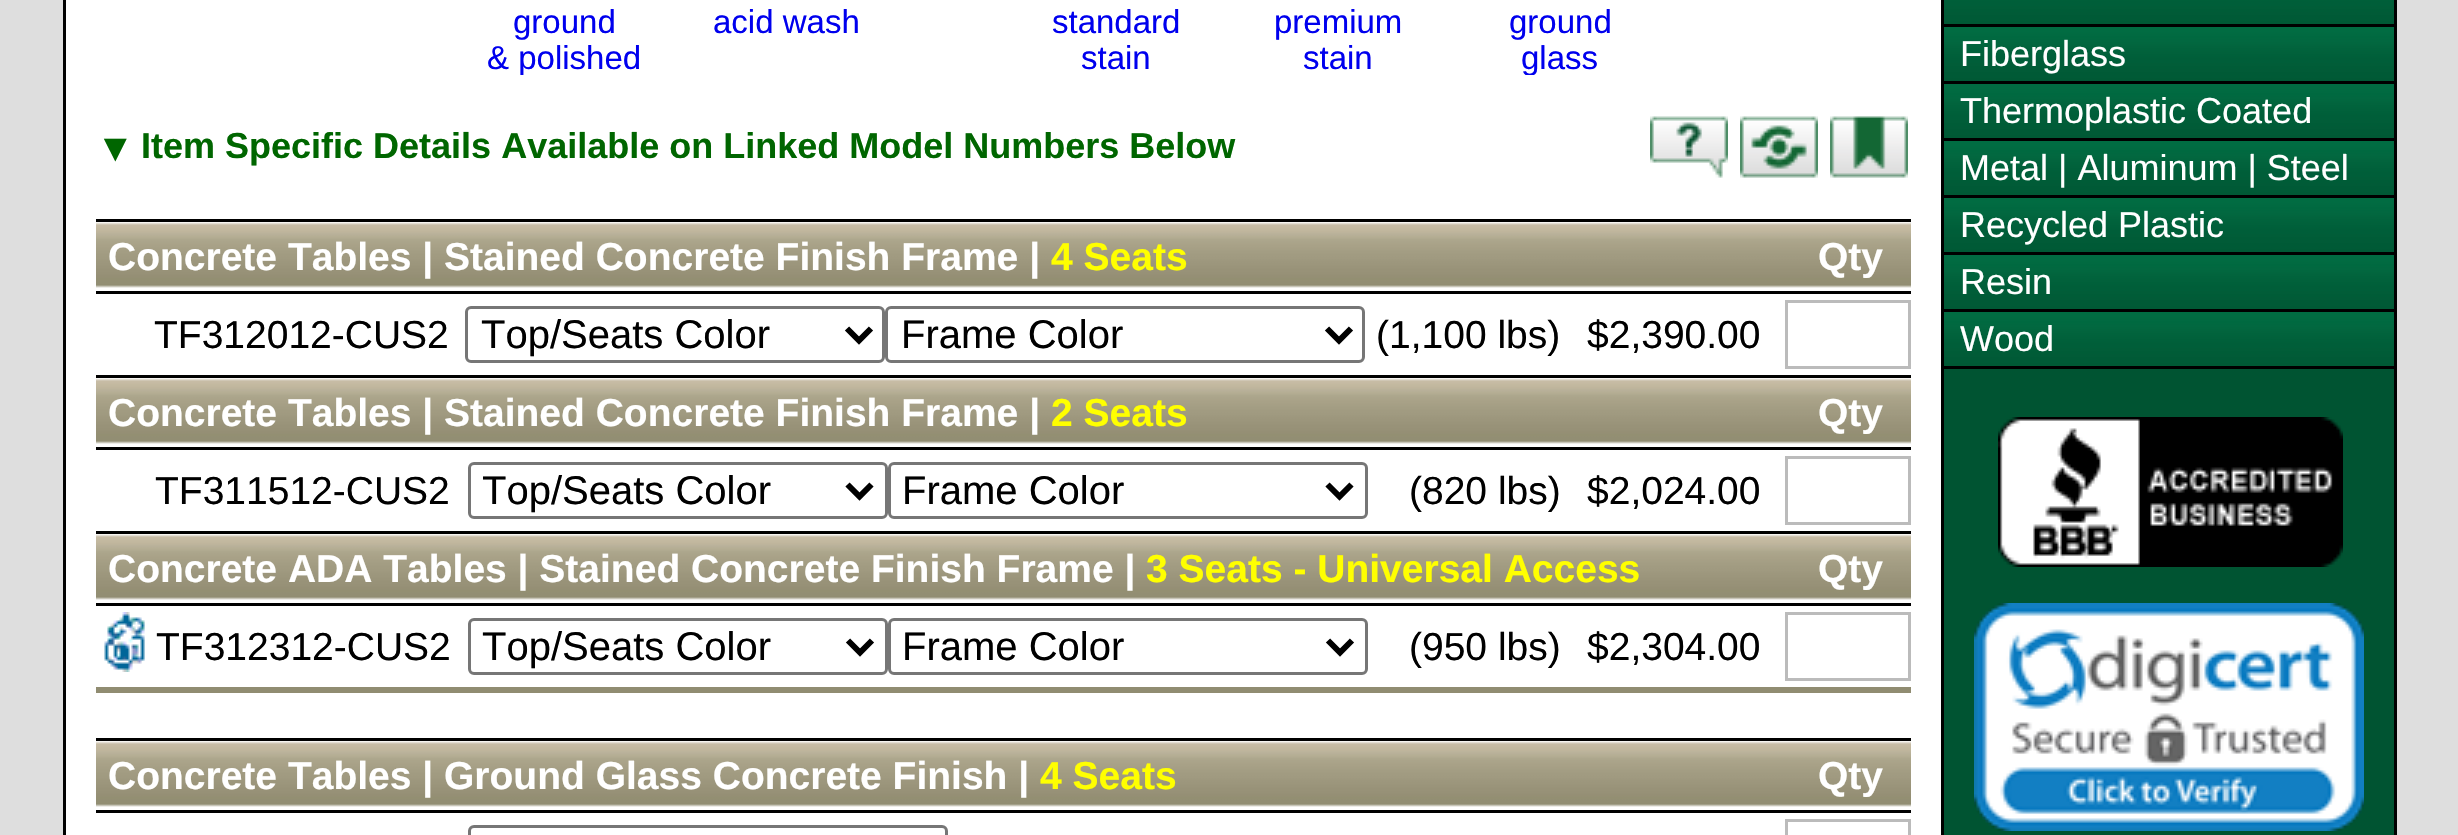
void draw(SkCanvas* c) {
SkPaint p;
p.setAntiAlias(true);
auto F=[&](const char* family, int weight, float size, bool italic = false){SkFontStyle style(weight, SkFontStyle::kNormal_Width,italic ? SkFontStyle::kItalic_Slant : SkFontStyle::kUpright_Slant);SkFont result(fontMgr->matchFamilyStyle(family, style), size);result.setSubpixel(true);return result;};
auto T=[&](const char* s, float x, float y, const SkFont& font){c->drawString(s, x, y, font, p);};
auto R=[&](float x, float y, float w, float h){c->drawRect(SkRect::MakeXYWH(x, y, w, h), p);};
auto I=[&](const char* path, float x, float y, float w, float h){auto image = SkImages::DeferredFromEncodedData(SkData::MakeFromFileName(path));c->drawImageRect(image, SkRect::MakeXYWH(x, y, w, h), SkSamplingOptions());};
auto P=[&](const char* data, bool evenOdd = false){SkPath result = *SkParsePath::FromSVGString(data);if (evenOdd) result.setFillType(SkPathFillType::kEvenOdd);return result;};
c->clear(0xffdedede);
p.setColor(0xff005432);
R(1944,369,450,466);
p.setColor(0xff000000);
R(2394,0,3,835);
R(63,0,3,835);
p.setColor(0xffffffff);
R(66,0,1875,835);
p.setColor(0xff000000);
R(1941,0,3,835);
auto f1 = F("Liberation Sans",400,33);
p.setColor(0xff0000ee);
T("ground",513,33,f1);
c->save();
c->clipRect(SkRect::MakeXYWH(357,3,1293,72));
T("& polished",487,69,f1);
c->restore();
T("acid wash",713,33,f1);
T("standard",1052,33,f1);
T("stain",1081,69,f1);
T("premium",1274,33,f1);
T("stain",1303,69,f1);
T("ground",1509,33,f1);
c->save();
c->clipRect(SkRect::MakeXYWH(357,3,1293,72));
T("glass",1521,69,f1);
c->restore();
auto f2 = F("Liberation Sans",700,39);
p.setColor(0xff006600);
T("▼",96,161,f2);
auto f3 = F("Liberation Sans",700,36);
T("Item Specific Details Available on Linked Model Numbers Below",141,158,f3);
I("1.png",1650,116,78,62);
I("2.png",1740,116,78,62);
I("3.png",1830,116,78,62);
I("4.png",96,222,1815,69);
p.setColor(0xff000000);
R(96,219,1815,3);
R(96,291,1815,3);
p.setColor(0xffffffff);
T("Concrete Tables | Stained Concrete Finish Frame |",108,270,f2);
p.setColor(0xffffff00);
T("4 Seats",1051,270,f2);
p.setColor(0xffffffff);
T("Qty",1818,270,f2);
auto f4 = F("Liberation Sans",400,39);
p.setColor(0xff000000);
T("TF312012-CUS2",154,348,f4);
p.setStroke(true);
p.setStrokeWidth(3);
p.setColor(0xff767676);
c->drawRoundRect(SkRect::MakeXYWH(466.5,307.5,417,54),4.5,4.5,p);
p.setStrokeWidth(6);
p.setColor(0xff000000);
c->drawPath(P("M847 328.5l12 12l12-12"),p);
auto f5 = F("Liberation Sans",400,40);
p.setStroke(false);
T("Top/Seats Color",481,348,f5);
p.setStroke(true);
p.setStrokeWidth(3);
p.setColor(0xff767676);
c->drawRoundRect(SkRect::MakeXYWH(886.5,307.5,477,54),4.5,4.5,p);
p.setStrokeWidth(6);
p.setColor(0xff000000);
c->drawPath(P("M1327 328.5l12 12l12-12"),p);
p.setStroke(false);
T("Frame Color",901,348,f5);
T("(1,100 lbs)",1376,348,f4);
T("$2,390.00",1587,348,f4);
p.setStroke(true);
p.setStrokeWidth(3);
p.setColor(0xffbbbbbb);
c->drawRect(SkRect::MakeXYWH(1786.5,301.5,123,66),p);
I("5.png",96,378,1815,69);
p.setStroke(false);
p.setColor(0xff000000);
R(96,375,1815,3);
R(96,447,1815,3);
p.setColor(0xffffffff);
T("Concrete Tables | Stained Concrete Finish Frame |",108,426,f2);
p.setColor(0xffffff00);
T("2 Seats",1051,426,f2);
p.setColor(0xffffffff);
T("Qty",1818,426,f2);
p.setColor(0xff000000);
T("TF311512-CUS2",155,504,f4);
p.setStroke(true);
p.setColor(0xff767676);
c->drawRoundRect(SkRect::MakeXYWH(469.5,463.5,417,54),4.5,4.5,p);
p.setStrokeWidth(6);
p.setColor(0xff000000);
c->drawPath(P("M847.5 484.5l12 12l12-12"),p);
c->save();
c->clipRect(SkRect::MakeXYWH(483,465,354,51));
p.setStroke(false);
T("Top/Seats Color",482,504,f5);
c->restore();
p.setStroke(true);
p.setStrokeWidth(3);
p.setColor(0xff767676);
c->drawRoundRect(SkRect::MakeXYWH(889.5,463.5,477,54),4.5,4.5,p);
p.setStrokeWidth(6);
p.setColor(0xff000000);
c->drawPath(P("M1327.5 484.5l12 12l12-12"),p);
p.setStroke(false);
T("Frame Color",902,504,f5);
T("(820 lbs)",1409,504,f4);
T("$2,024.00",1587,504,f4);
p.setStroke(true);
p.setStrokeWidth(3);
p.setColor(0xffbbbbbb);
c->drawRect(SkRect::MakeXYWH(1786.5,457.5,123,66),p);
I("4.png",96,534,1815,69);
p.setStroke(false);
p.setColor(0xff000000);
R(96,531,1815,3);
R(96,603,1815,3);
p.setColor(0xffffffff);
T("Concrete ADA Tables | Stained Concrete Finish Frame |",108,582,f2);
p.setColor(0xffffff00);
T("3 Seats - Universal Access",1146,582,f2);
p.setColor(0xffffffff);
T("Qty",1818,582,f2);
p.setColor(0xff908c71);
R(96,687,1815,6);
I("6.png",104,612,41,60);
p.setColor(0xff000000);
T("TF312312-CUS2",156,660,f4);
p.setStroke(true);
p.setColor(0xff767676);
c->drawRoundRect(SkRect::MakeXYWH(469.5,619.5,417,54),4.5,4.5,p);
p.setStrokeWidth(6);
p.setColor(0xff000000);
c->drawPath(P("M848 640.5l12 12l12-12"),p);
p.setStroke(false);
T("Top/Seats Color",482,660,f5);
p.setStroke(true);
p.setStrokeWidth(3);
p.setColor(0xff767676);
c->drawRoundRect(SkRect::MakeXYWH(889.5,619.5,477,54),4.5,4.5,p);
p.setStrokeWidth(6);
p.setColor(0xff000000);
c->drawPath(P("M1328 640.5l12 12l12-12"),p);
p.setStroke(false);
T("Frame Color",902,660,f5);
T("(950 lbs)",1409,660,f4);
T("$2,304.00",1587,660,f4);
p.setStroke(true);
p.setStrokeWidth(3);
p.setColor(0xffbbbbbb);
c->drawRect(SkRect::MakeXYWH(1786.5,613.5,123,66),p);
I("7.png",96,741,1815,69);
p.setStroke(false);
p.setColor(0xff000000);
R(96,738,1815,3);
R(96,810,1815,3);
p.setColor(0xffffffff);
T("Concrete Tables | Ground Glass Concrete Finish |",108,789,f2);
p.setColor(0xffffff00);
T("4 Seats",1040,789,f2);
p.setColor(0xffffffff);
T("Qty",1818,789,f2);
p.setStroke(true);
p.setColor(0xff767676);
c->drawRoundRect(SkRect::MakeXYWH(469.5,826.5,477,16),4.5,4.5,p);
p.setColor(0xffbbbbbb);
c->drawRect(SkRect::MakeXYWH(1786.5,820.5,123,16),p);
I("8.png",1944,0,450,24);
p.setStroke(false);
p.setColor(0xff000000);
R(1944,24,450,3);
I("9.png",1944,27,450,54);
R(1944,81,450,3);
auto f6 = F("Liberation Sans",400,36);
p.setColor(0xffffffff);
T("Fiberglass",1960,66,f6);
I("9.png",1944,84,450,54);
p.setColor(0xff000000);
R(1944,138,450,3);
p.setColor(0xffffffff);
T("Thermoplastic Coated",1960,123,f6);
I("9.png",1944,141,450,54);
p.setColor(0xff000000);
R(1944,195,450,3);
p.setColor(0xffffffff);
T("Metal | Aluminum | Steel",1960,180,f6);
I("9.png",1944,198,450,54);
p.setColor(0xff000000);
R(1944,252,450,3);
p.setColor(0xffffffff);
T("Recycled Plastic",1960,237,f6);
I("9.png",1944,255,450,54);
p.setColor(0xff000000);
R(1944,309,450,3);
p.setColor(0xffffffff);
T("Resin",1960,294,f6);
I("9.png",1944,312,450,54);
p.setColor(0xff000000);
R(1944,366,450,3);
p.setColor(0xffffffff);
T("Wood",1960,351,f6);
I("10.png",1998,417,345,150);
I("11.png",1974,603,390,228);
}
